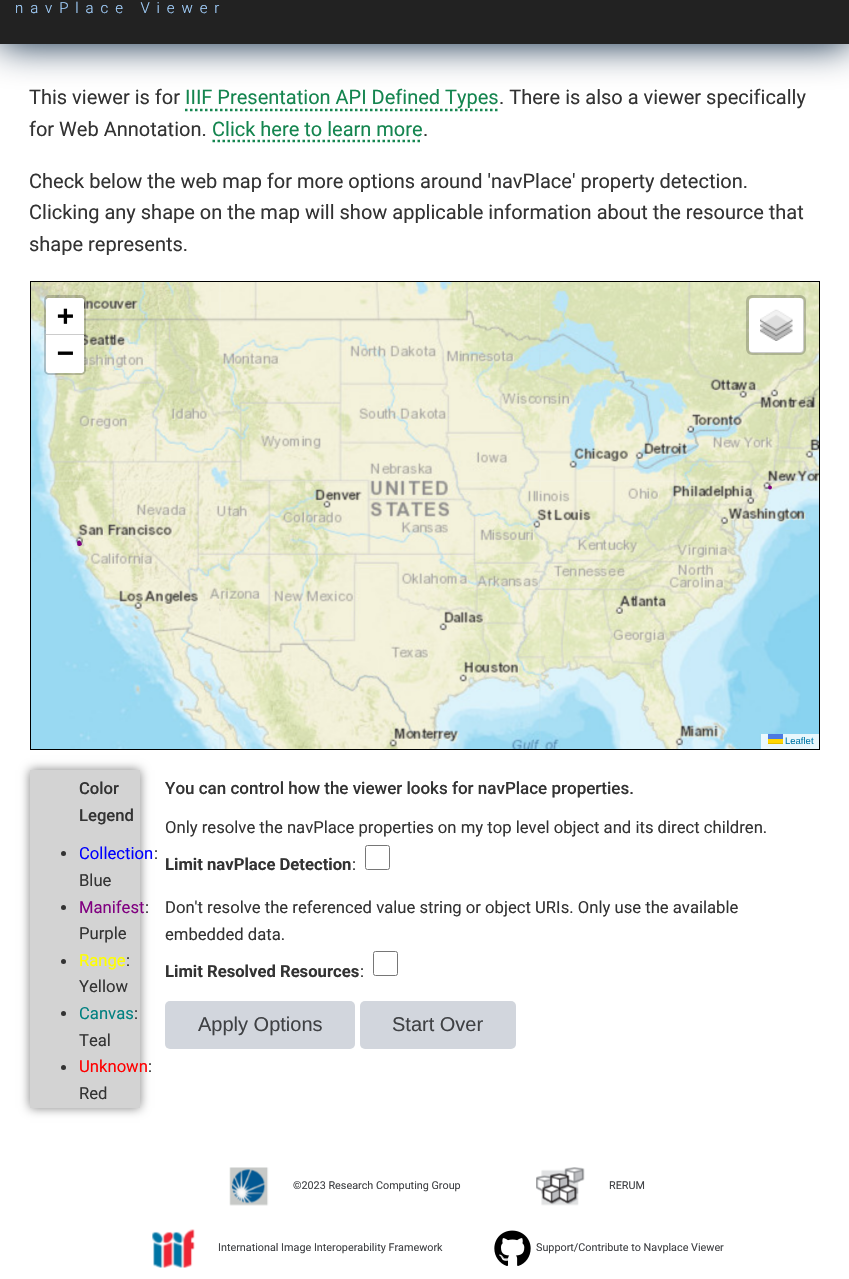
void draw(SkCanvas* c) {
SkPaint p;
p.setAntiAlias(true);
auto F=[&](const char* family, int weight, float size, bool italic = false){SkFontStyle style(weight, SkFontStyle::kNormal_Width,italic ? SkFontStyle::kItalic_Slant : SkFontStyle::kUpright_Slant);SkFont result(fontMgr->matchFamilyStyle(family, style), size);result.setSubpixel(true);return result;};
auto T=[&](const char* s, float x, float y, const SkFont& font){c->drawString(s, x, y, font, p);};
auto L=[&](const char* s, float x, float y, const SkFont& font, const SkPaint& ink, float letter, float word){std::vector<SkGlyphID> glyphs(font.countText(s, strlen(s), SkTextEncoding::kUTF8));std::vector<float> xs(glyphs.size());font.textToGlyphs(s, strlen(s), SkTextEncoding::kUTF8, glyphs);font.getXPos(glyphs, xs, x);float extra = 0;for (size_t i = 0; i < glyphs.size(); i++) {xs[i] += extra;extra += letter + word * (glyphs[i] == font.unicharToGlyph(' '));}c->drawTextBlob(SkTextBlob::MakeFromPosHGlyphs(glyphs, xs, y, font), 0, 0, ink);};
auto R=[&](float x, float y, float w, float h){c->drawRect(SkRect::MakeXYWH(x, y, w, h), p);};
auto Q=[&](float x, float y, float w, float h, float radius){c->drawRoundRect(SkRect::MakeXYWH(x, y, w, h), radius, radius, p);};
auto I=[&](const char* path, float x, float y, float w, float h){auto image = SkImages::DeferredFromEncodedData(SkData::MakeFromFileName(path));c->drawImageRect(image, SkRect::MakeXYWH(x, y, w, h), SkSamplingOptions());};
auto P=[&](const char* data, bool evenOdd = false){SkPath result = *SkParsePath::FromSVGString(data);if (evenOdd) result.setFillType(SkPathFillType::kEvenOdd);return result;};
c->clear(0xffffffff);
p.setColor(0xff001e3c);
p.setMaskFilter(SkMaskFilter::MakeBlur(kNormal_SkBlurStyle, 19));
c->drawRect(SkRect::MakeXYWH(0,-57,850,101),p);
p.setMaskFilter(nullptr);
p.setColor(0xff222222);
R(0,0,849,44);
auto f1 = F("Roboto",300,15);
p.setColor(0xffa3d1ff);
L("navPlace Viewer",15,13,f1,p,6.9,0);
auto f2 = F("Roboto",400,20);
p.setColor(0xff333333);
T("This viewer is for",29,104,f2);
p.setStroke(true);
p.setStrokeWidth(2.5);
p.setColor(0xff14854f);
p.setPathEffect(SkDashPathEffect::Make({{2.5f,2.5f}}, 0));
c->drawPath(P("M185 110h314"),p);
p.setPathEffect(nullptr);
p.setStroke(false);
T("IIIF Presentation API Defined Types",185,104,f2);
p.setColor(0xff333333);
T(". There is also a viewer specifically",499,104,f2);
T("for Web Annotation.",29,136,f2);
p.setColor(0xff14854f);
T("Click here to learn more",212,136,f2);
p.setStroke(true);
p.setPathEffect(SkDashPathEffect::Make({{2.5f,2.5f}}, 0));
c->drawPath(P("M212.5 141h210"),p);
p.setPathEffect(nullptr);
p.setStroke(false);
p.setColor(0xff333333);
T(".",423,136,f2);
T("Check below the web map for more options around 'navPlace' property detection.",29,188,f2);
T("Clicking any shape on the map will show applicable information about the resource that",29,219,f2);
T("shape represents.",29,251,f2);
p.setStroke(true);
p.setStrokeWidth(1);
p.setColor(0xff000000);
c->drawRect(SkRect::MakeXYWH(30.5,281.5,789,468),p);
I("2.png",219,282,322,200);
I("5.png",219,480,322,269);
I("1.png",31,282,190,200);
I("3.png",539,282,280,200);
I("4.png",31,481,190,268);
I("6.png",539,480,280,269);
I("8.png",219,282,322,200);
I("11.png",219,480,322,269);
I("7.png",31,282,190,200);
I("9.png",539,282,280,200);
I("10.png",31,480,190,269);
I("12.png",539,480,280,269);
p.setStrokeWidth(3.8);
p.setStrokeCap(SkPaint::kRound_Cap);
p.setStrokeJoin(SkPaint::kRound_Join);
p.setColor(0xff800080);
c->drawPath(P("M80 544l-1-1.5zm-1-1.5h0zm0 0h0zm0 0l1 1.5zm0 1.5h0zm0-1.5h0z"),p);
c->drawPath(P("M770 487.5h0z"),p);
p.setStrokeWidth(3);
p.setStrokeCap(SkPaint::kButt_Cap);
p.setStrokeJoin(SkPaint::kMiter_Join);
p.setColor(0x33000000);
c->drawRoundRect(SkRect::MakeXYWH(45.5,296.5,39,77),3.5,3.5,p);
p.setStroke(false);
p.setColor(0xffffffff);
c->drawPath(P("M48.5 298h33c1.5 0 2.5 1 2.5 2.5v34.5h-38v-34.5c0-1.5 1-2.5 2.5-2.5z"),p);
p.setColor(0xffcccccc);
R(46,334,38,1);
auto f3 = F("DejaVu Sans Mono",700,28);
p.setColor(0xff000000);
T("+",57,325,f3);
p.setColor(0xffffffff);
c->drawPath(P("M46 335h38v35.5c0 1.5-1 2.5-2.5 2.5h-33c-1.5 0-2.5-1-2.5-2.5z"),p);
p.setColor(0xff000000);
T("−",57,362,f3);
p.setColor(0xffffffff);
Q(749,298,55,55,4);
p.setStroke(true);
p.setColor(0x33000000);
c->drawRoundRect(SkRect::MakeXYWH(747.5,296.5,57,57),4.5,4.5,p);
I("13.png",760,309,33,32);
p.setStroke(false);
p.setColor(0xccffffff);
R(761,734,58,15);
auto f4 = F("Liberation Sans",400,9.5);
p.setColor(0xff0078a8);
T("Leaflet",785,744,f4);
p.setColor(0xff4c7be1);
R(768,734,15,5);
p.setColor(0xffffd500);
R(768,739,15,4);
p.setColor(0xffe0bc00);
R(768,743,15,1);
p.setColor(0xff808080);
p.setMaskFilter(SkMaskFilter::MakeBlur(kNormal_SkBlurStyle, 5));
c->drawRect(SkRect::MakeXYWH(30,770,110,338),p);
p.setMaskFilter(nullptr);
p.setColor(0xffd3d3d3);
R(30,770,110,338);
auto f5 = F("Roboto",500,16.65);
p.setColor(0xff333333);
T("Color",79,794,f5);
T("Legend",79,821,f5);
c->drawCircle(63.5,853.5,2.5,p);
auto f6 = F("Roboto",400,16.65);
p.setColor(0xff0000ff);
T("Collection",79,859,f6);
p.setColor(0xff333333);
T(":",154,859,f6);
T("Blue",79,886,f6);
c->drawCircle(63.5,907.5,2.5,p);
p.setColor(0xff800080);
T("Manifest",79,913,f6);
p.setColor(0xff333333);
T(":",145,913,f6);
T("Purple",79,939,f6);
c->drawCircle(63.5,961.5,2.5,p);
p.setColor(0xffffff00);
T("Range",79,966,f6);
p.setColor(0xff333333);
T(":",126,966,f6);
T("Yellow",79,992,f6);
c->drawCircle(63.5,1013.5,2.5,p);
p.setColor(0xff008080);
T("Canvas",79,1019,f6);
p.setColor(0xff333333);
T(":",134,1019,f6);
T("Teal",79,1046,f6);
c->drawCircle(63.5,1067.5,2.5,p);
p.setColor(0xffff0000);
T("Unknown",79,1072,f6);
p.setColor(0xff333333);
T(":",148,1072,f6);
T("Red",79,1099,f6);
auto f7 = F("Roboto",500,17);
T("You can control how the viewer looks for navPlace properties.",165,794,f7);
T("Only resolve the navPlace properties on my top level object and its direct children.",165,833,f6);
auto f8 = F("Roboto",700,16.65);
T("Limit navPlace Detection",165,870,f8);
T(":",352,870,f6);
p.setStroke(true);
p.setStrokeWidth(1);
p.setColor(0xff767676);
c->drawRoundRect(SkRect::MakeXYWH(365.5,845.5,24,24),2,2,p);
p.setStroke(false);
p.setColor(0xff333333);
T("Don't resolve the referenced value string or object URIs. Only use the available",165,913,f6);
T("embedded data.",165,940,f6);
T("Limit Resolved Resources",165,977,f8);
T(":",360,977,f6);
p.setStroke(true);
p.setColor(0xff767676);
c->drawRoundRect(SkRect::MakeXYWH(373.5,951.5,24,24),2,2,p);
p.setStroke(false);
p.setColor(0xffd2d6dd);
Q(165,1001,190,48,5);
auto f9 = F("Liberation Sans",400,20);
p.setColor(0xff3f4144);
T("Apply Options",198,1031,f9);
p.setColor(0xffd2d6dd);
Q(360,1001,156,48,5);
p.setColor(0xff3f4144);
T("Start Over",392,1031,f9);
I("14.png",229,1167,40,39);
auto f10 = F("Roboto",400,10.8);
T("©2023 Research Computing Group",293,1189,f10);
I("15.png",536,1167,49,39);
T("RERUM",609,1189,f10);
I("16.png",152,1229,43,39);
T("International Image Interoperability Framework",218,1251,f10);
I("17.png",494,1230,37,36);
T("Support/Contribute to Navplace Viewer",536,1251,f10);
}
